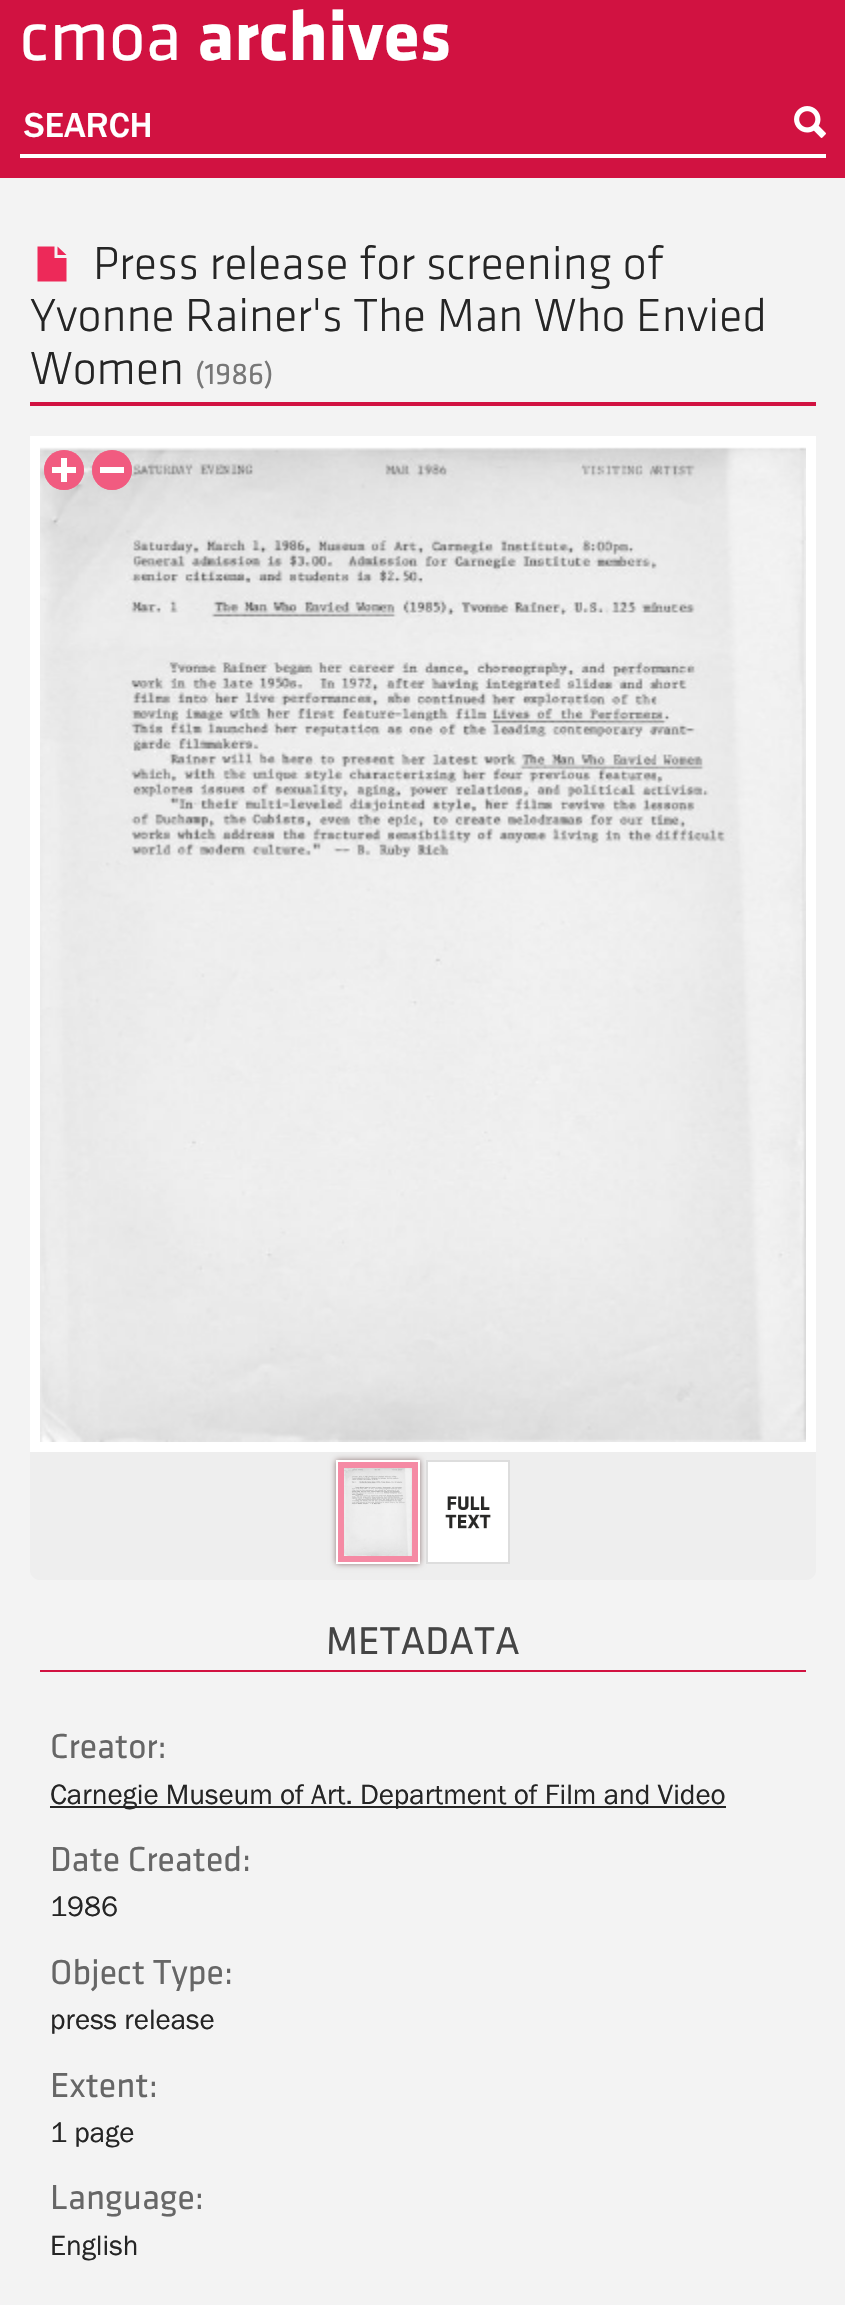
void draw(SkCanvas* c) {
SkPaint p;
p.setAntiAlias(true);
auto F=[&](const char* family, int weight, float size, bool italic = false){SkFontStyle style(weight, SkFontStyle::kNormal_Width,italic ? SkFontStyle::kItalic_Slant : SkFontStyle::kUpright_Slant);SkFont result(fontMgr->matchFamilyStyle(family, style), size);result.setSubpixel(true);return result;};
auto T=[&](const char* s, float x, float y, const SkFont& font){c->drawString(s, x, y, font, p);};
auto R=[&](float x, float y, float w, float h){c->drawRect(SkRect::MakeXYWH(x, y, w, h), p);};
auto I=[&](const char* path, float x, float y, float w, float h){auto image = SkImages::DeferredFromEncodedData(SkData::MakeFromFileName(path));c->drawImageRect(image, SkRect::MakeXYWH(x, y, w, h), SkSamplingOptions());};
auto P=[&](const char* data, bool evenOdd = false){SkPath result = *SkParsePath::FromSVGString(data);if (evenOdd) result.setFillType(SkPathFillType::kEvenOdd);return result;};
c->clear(0xfff3f3f3);
p.setColor(0xffd11241);
R(0,0,845,178);
auto f1 = F("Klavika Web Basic",400,72);
p.setColor(0xffffffff);
T("cmoa",20,60,f1);
auto f2 = F("Klavika Web Basic",700,72);
T("archives",197,60,f2);
I("1.png",794,106,32,32);
R(20,154,806,4);
auto f3 = F("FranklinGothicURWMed",400,36);
T("SEARCH",24,137,f3);
p.setColor(0xffd11241);
R(30,402,786,4);
p.setColor(0xffed2959);
c->drawPath(P("M66.5 255h-9v-8.5zm-12 3v-11.5h-17v35h29v-23.5z"),p);
auto f4 = F("Klavika Web Basic",300,48);
p.setColor(0xff252525);
T("Press release for screening of",93,279,f4);
T("Yvonne Rainer's The Man Who Envied",30,331,f4);
T("Women",30,384,f4);
auto f5 = F("Klavika Web Basic",400,31);
p.setColor(0xff777777);
T("(1986)",195,384,f5);
p.setColor(0xffeeeeee);
c->drawPath(P("M30 1452h786v118c0 5.5-4.5 10-10 10h-766c-5.5 0-10-4.5-10-10z"),p);
p.setColor(0xff907878);
p.setMaskFilter(SkMaskFilter::MakeBlur(kNormal_SkBlurStyle, 3));
c->drawRect(SkRect::MakeXYWH(336,1460,84,104),p);
p.setMaskFilter(nullptr);
p.setColor(0xffffffff);
R(30,436,786,1016);
I("2.png",40,447,766,995);
p.setColor(0xfff15b80);
c->drawCircle(64,470,20,p);
p.setColor(0xa8f15b80);
c->drawCircle(64,470,20,p);
p.setColor(0xffffffff);
R(52,467,24,6);
R(61,458,6,24);
p.setColor(0xfff15b80);
c->drawCircle(112,470,20,p);
p.setColor(0xa8f15b80);
c->drawCircle(112,470,20,p);
p.setColor(0xffffffff);
R(100,467,24,6);
p.setColor(0xfff58aa4);
c->drawRect(SkRect::MakeXYWH(337,1461,82,102),p);
p.setStroke(true);
p.setStrokeWidth(2);
p.setColor(0xffffffff);
c->drawRect(SkRect::MakeXYWH(337,1461,82,102),p);
I("3.png",344,1468,68,88);
p.setStroke(false);
c->drawRect(SkRect::MakeXYWH(427,1461,82,102),p);
p.setStroke(true);
p.setColor(0xffdddddd);
c->drawRect(SkRect::MakeXYWH(427,1461,82,102),p);
I("4.png",445,1496,46,33);
p.setStroke(false);
p.setColor(0xffd11241);
R(40,1670,766,2);
auto f6 = F("Klavika Web Basic",400,40);
p.setColor(0xff444444);
T("METADATA",326,1654,f6);
auto f7 = F("Klavika Web Basic",400,36);
p.setColor(0xff666666);
T("Creator:",50,1758,f7);
p.setColor(0xff252525);
R(50,1806,676,2);
auto f8 = F("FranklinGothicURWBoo",400,29);
T("Carnegie Museum of Art. Department of Film and Video",50,1804,f8);
p.setColor(0xff666666);
T("Date Created:",50,1871,f7);
p.setColor(0xff252525);
T("1986",50,1916,f8);
p.setColor(0xff666666);
T("Object Type:",50,1984,f7);
p.setColor(0xff252525);
T("press release",50,2029,f8);
p.setColor(0xff666666);
T("Extent:",50,2097,f7);
p.setColor(0xff252525);
T("1 page",50,2142,f8);
p.setColor(0xff666666);
T("Language:",50,2209,f7);
p.setColor(0xff252525);
T("English",50,2255,f8);
}
